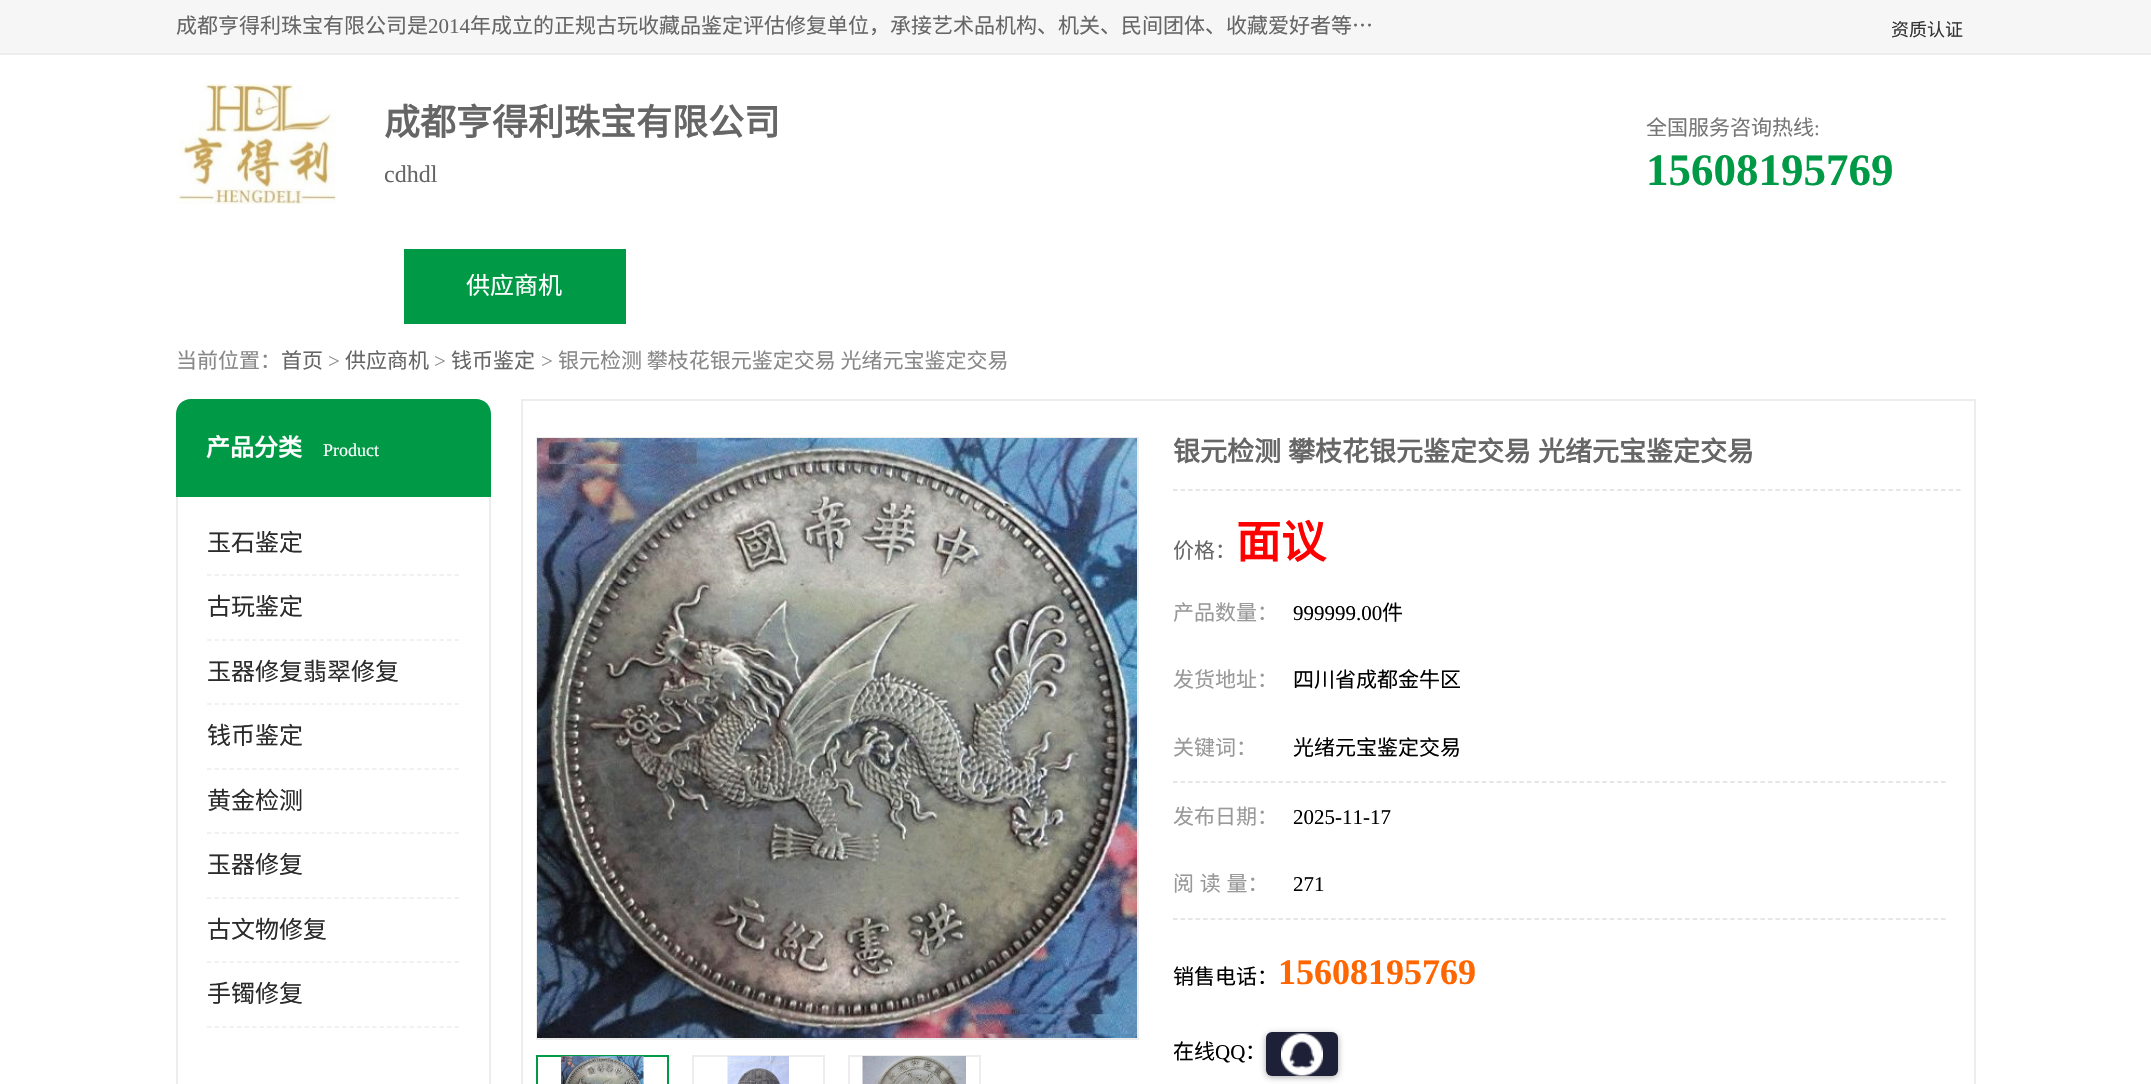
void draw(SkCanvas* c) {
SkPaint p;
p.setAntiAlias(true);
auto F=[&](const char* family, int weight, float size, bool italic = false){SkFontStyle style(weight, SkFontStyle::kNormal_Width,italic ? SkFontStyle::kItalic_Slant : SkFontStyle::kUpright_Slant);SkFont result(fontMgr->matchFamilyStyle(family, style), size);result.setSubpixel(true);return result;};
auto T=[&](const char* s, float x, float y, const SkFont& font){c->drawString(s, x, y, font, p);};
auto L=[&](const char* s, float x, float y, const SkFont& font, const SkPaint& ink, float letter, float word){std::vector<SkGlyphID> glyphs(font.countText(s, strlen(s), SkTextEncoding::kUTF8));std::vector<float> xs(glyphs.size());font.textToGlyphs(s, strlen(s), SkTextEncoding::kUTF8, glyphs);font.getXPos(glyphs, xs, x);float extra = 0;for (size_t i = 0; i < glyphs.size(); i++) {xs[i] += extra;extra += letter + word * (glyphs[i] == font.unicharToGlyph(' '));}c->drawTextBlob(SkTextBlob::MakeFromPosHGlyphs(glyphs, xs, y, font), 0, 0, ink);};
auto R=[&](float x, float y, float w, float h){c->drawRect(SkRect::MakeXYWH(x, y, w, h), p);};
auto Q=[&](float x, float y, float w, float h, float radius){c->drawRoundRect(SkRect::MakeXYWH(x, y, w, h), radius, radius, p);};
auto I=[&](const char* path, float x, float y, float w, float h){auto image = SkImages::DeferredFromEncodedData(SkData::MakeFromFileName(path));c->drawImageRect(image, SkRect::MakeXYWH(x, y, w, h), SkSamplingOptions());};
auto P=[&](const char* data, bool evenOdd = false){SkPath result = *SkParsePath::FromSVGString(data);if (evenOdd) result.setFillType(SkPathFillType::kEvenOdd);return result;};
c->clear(0xffffffff);
p.setColor(0xfff6f6f6);
R(0,0,2151,53);
p.setColor(0xffededed);
R(0,53,2151,2);
auto f1 = F("Noto Sans CJK SC",400,21);
p.setColor(0xff666666);
T("成都亨得利珠宝有限公司是",176,33,f1);
auto f2 = F("Liberation Serif",400,21);
T("2014",428,33,f2);
T("年成立的正规古玩收藏品鉴定评估修复单位，承接艺术品机构、机关、民间团体、收藏爱好者等…",470,33,f1);
auto f3 = F("Noto Sans CJK SC",400,18);
p.setColor(0xff333333);
T("资质认证",1891,36,f3);
I("1.png",175,84,163,120);
auto f4 = F("Noto Sans CJK SC",700,36);
p.setColor(0xff666666);
T("成都亨得利珠宝有限公司",384,135,f4);
auto f5 = F("Liberation Serif",400,24);
T("cdhdl",384,182,f5);
p.setColor(0xff777777);
T("全国服务咨询热线",1646,135,f1);
T(":",1814,135,f2);
auto f6 = F("Liberation Serif",700,45);
p.setColor(0xff009946);
T("15608195769",1646,185,f6);
R(404,249,222,75);
auto f7 = F("Noto Sans CJK SC",400,24);
p.setColor(0xffffffff);
T("供应商机",466,294,f7);
p.setColor(0xff888888);
T("当前位置：",176,368,f1);
p.setColor(0xff666666);
T("首页",281,368,f1);
p.setColor(0xff888888);
T(">",328,368,f2);
p.setColor(0xff666666);
T("供应商机",345,368,f1);
p.setColor(0xff888888);
T(">",434,368,f2);
p.setColor(0xff666666);
T("钱币鉴定",451,368,f1);
p.setColor(0xff888888);
T(">",541,368,f2);
T("银元检测 攀枝花银元鉴定交易 光绪元宝鉴定交易",558,368,f1);
p.setColor(0xff009946);
c->drawPath(P("M191 399h285c8.5 0 15 6.5 15 15v83h-315v-83c0-8.5 6.5-15 15-15z"),p);
auto f8 = F("Noto Sans CJK SC",700,24);
p.setColor(0xffffffff);
T("产品分类",206,456,f8);
auto f9 = F("Liberation Serif",400,18);
T("Product",323,456,f9);
p.setColor(0xffededed);
R(489,497,2,587);
R(176,497,2,587);
p.setStroke(true);
p.setStrokeWidth(1.5);
p.setPathEffect(SkDashPathEffect::Make({{4.5f,3}}, 0));
c->drawPath(P("M207 575h252"),p);
p.setPathEffect(nullptr);
p.setStroke(false);
p.setColor(0xff2b2b2b);
T("玉石鉴定",207,551,f7);
p.setStroke(true);
p.setColor(0xffededed);
p.setPathEffect(SkDashPathEffect::Make({{4.5f,3}}, 0));
c->drawPath(P("M207 640h252"),p);
p.setPathEffect(nullptr);
p.setStroke(false);
p.setColor(0xff2b2b2b);
T("古玩鉴定",207,615,f7);
p.setStroke(true);
p.setColor(0xffededed);
p.setPathEffect(SkDashPathEffect::Make({{4.5f,3}}, 0));
c->drawPath(P("M207 704h252"),p);
p.setPathEffect(nullptr);
p.setStroke(false);
p.setColor(0xff2b2b2b);
T("玉器修复翡翠修复",207,680,f7);
p.setStroke(true);
p.setColor(0xffededed);
p.setPathEffect(SkDashPathEffect::Make({{4.5f,3}}, 0));
c->drawPath(P("M207 769h252"),p);
p.setPathEffect(nullptr);
p.setStroke(false);
p.setColor(0xff2b2b2b);
T("钱币鉴定",207,744,f7);
p.setStroke(true);
p.setColor(0xffededed);
p.setPathEffect(SkDashPathEffect::Make({{4.5f,3}}, 0));
c->drawPath(P("M207 833h252"),p);
p.setPathEffect(nullptr);
p.setStroke(false);
p.setColor(0xff2b2b2b);
T("黄金检测",207,809,f7);
p.setStroke(true);
p.setColor(0xffededed);
p.setPathEffect(SkDashPathEffect::Make({{4.5f,3}}, 0));
c->drawPath(P("M207 898h252"),p);
p.setPathEffect(nullptr);
p.setStroke(false);
p.setColor(0xff2b2b2b);
T("玉器修复",207,873,f7);
p.setStroke(true);
p.setColor(0xffededed);
p.setPathEffect(SkDashPathEffect::Make({{4.5f,3}}, 0));
c->drawPath(P("M207 962h252"),p);
p.setPathEffect(nullptr);
p.setStroke(false);
p.setColor(0xff2b2b2b);
T("古文物修复",207,938,f7);
p.setStroke(true);
p.setColor(0xffededed);
p.setPathEffect(SkDashPathEffect::Make({{4.5f,3}}, 0));
c->drawPath(P("M207 1027h252"),p);
p.setPathEffect(nullptr);
p.setStroke(false);
p.setColor(0xff2b2b2b);
T("手镯修复",207,1002,f7);
p.setStroke(true);
p.setStrokeWidth(2);
p.setColor(0xffededed);
c->drawRect(SkRect::MakeXYWH(522,400,1453,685),p);
c->drawRect(SkRect::MakeXYWH(537,438,601,601),p);
I("2.png",537,438,600,600);
p.setColor(0xff009946);
c->drawRect(SkRect::MakeXYWH(537,1056,131,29),p);
I("3.png",561,1056,83,28);
p.setColor(0xffededed);
c->drawRect(SkRect::MakeXYWH(693,1056,131,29),p);
I("4.png",727,1056,62,28);
c->drawRect(SkRect::MakeXYWH(849,1056,131,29),p);
I("5.png",862,1056,104,28);
p.setStrokeWidth(1.5);
p.setColor(0xffdedede);
p.setPathEffect(SkDashPathEffect::Make({{4.5f,3.03f}}, 0));
c->drawPath(P("M1173 490h787.5"),p);
p.setPathEffect(nullptr);
auto f10 = F("Noto Sans CJK SC",700,27);
p.setStroke(false);
p.setColor(0xff666666);
L("银元检测 攀枝花银元鉴定交易 光绪元宝鉴定交易",1173,461,f10,p,0,1);
T("价格：",1173,558,f1);
auto f11 = F("Noto Sans CJK SC",700,45);
p.setColor(0xffff0000);
T("面议",1236,558,f11);
p.setColor(0xff999999);
T("产品数量：",1173,620,f1);
p.setColor(0xff000000);
T("999999.00",1293,620,f2);
T("件",1382,620,f1);
p.setColor(0xff999999);
T("发货地址：",1173,687,f1);
p.setColor(0xff000000);
T("四川省成都金牛区",1293,687,f1);
p.setStroke(true);
p.setColor(0xffdedede);
p.setPathEffect(SkDashPathEffect::Make({{4.5f,3.03f}}, 0));
c->drawPath(P("M1173 782h772.5"),p);
p.setPathEffect(nullptr);
p.setStroke(false);
p.setColor(0xff999999);
T("关键词：",1173,755,f1);
p.setColor(0xff000000);
T("光绪元宝鉴定交易",1293,755,f1);
p.setColor(0xff999999);
T("发布日期：",1173,824,f1);
p.setColor(0xff000000);
T("2025-11-17",1293,824,f2);
p.setStroke(true);
p.setColor(0xffdedede);
p.setPathEffect(SkDashPathEffect::Make({{4.5f,3.03f}}, 0));
c->drawPath(P("M1173 919h772.5"),p);
p.setPathEffect(nullptr);
p.setStroke(false);
p.setColor(0xff999999);
L("阅 读 量：",1173,891,f1,p,0,1);
p.setColor(0xff000000);
T("271",1293,891,f2);
T("销售电话：",1173,984,f1);
auto f12 = F("Liberation Serif",700,36);
p.setColor(0xffff6600);
T("15608195769",1278,984,f12);
p.setColor(0xffa5a5a5);
p.setMaskFilter(SkMaskFilter::MakeBlur(kNormal_SkBlurStyle, 3));
c->drawRoundRect(SkRect::MakeXYWH(1266,1034,72,43),6,6,p);
p.setMaskFilter(nullptr);
p.setColor(0xff1e2037);
Q(1266,1032,72,44,6);
p.setColor(0xff000000);
T("在线",1173,1059,f1);
T("QQ",1215,1059,f2);
T("：",1245,1059,f1);
I("6.png",1281,1033,42,43);
}
